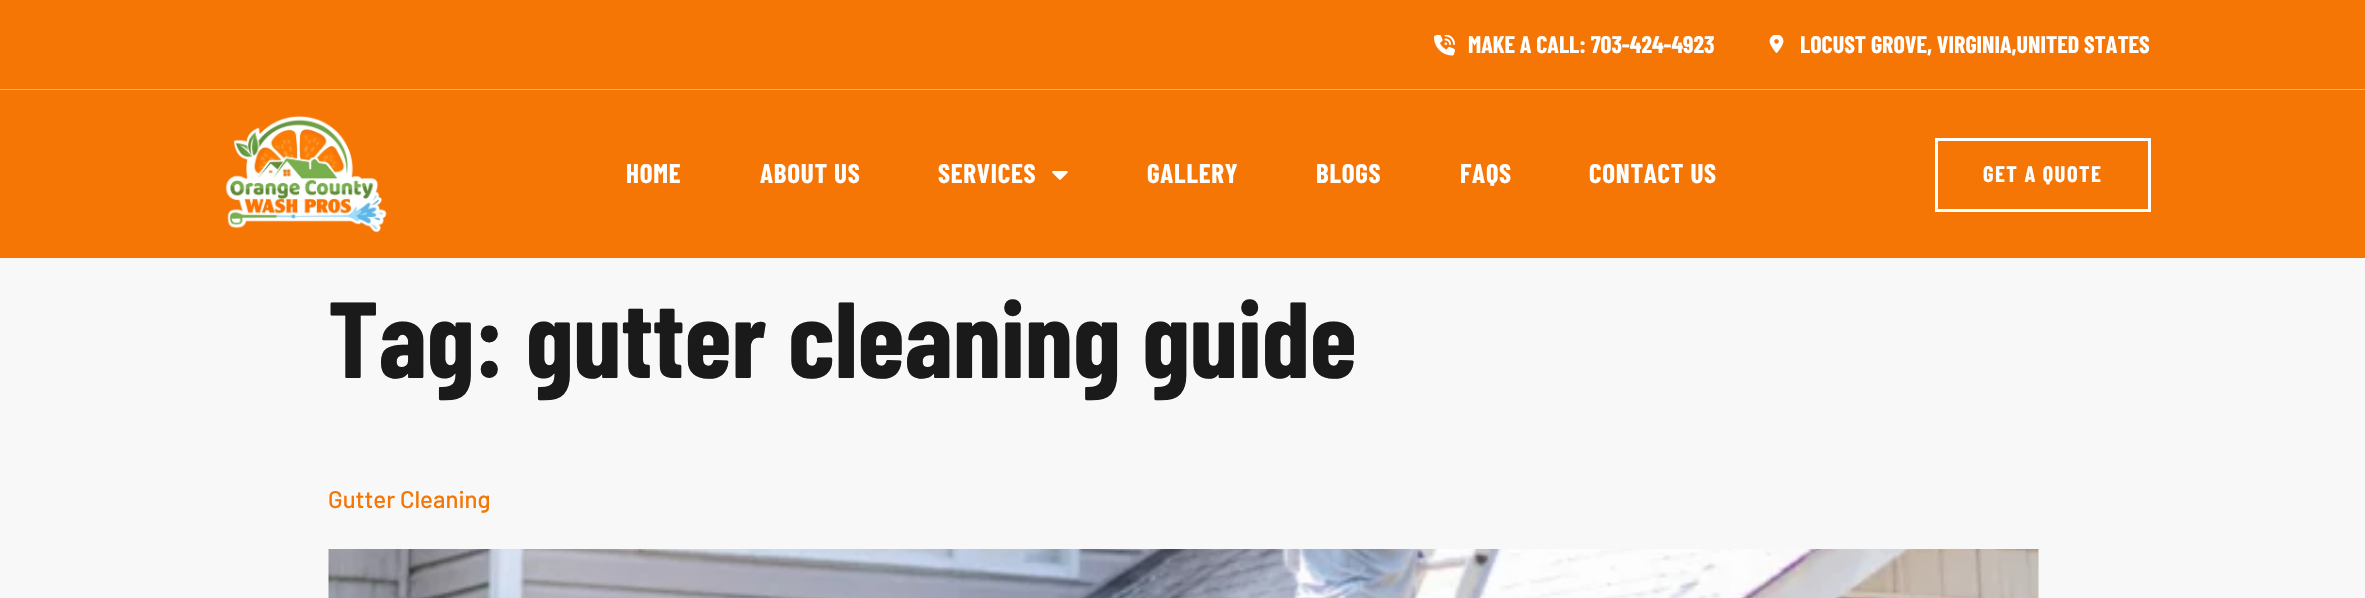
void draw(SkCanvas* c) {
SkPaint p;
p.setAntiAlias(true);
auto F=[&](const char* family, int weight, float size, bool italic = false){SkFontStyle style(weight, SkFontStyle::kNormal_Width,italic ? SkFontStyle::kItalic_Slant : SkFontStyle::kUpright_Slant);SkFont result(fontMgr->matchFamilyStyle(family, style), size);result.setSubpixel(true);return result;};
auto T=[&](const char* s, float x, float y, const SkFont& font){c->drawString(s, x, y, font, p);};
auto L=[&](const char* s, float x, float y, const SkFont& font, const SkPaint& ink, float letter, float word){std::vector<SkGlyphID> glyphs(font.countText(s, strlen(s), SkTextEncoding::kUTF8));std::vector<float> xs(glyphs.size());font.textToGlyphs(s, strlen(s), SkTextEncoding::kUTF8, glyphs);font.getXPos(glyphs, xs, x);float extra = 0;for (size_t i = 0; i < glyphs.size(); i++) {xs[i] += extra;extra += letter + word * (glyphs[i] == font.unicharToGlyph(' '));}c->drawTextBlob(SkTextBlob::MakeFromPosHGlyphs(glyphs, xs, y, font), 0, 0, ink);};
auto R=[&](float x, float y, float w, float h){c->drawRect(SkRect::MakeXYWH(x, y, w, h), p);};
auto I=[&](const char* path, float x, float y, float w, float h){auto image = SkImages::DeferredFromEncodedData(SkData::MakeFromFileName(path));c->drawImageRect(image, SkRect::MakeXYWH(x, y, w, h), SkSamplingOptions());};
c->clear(0xfff8f8f8);
p.setColor(0xfff57505);
R(0,0,2365,89);
p.setColor(0xfff6af70);
R(0,89,2365,1);
I("1.png",1434,35,21,21);
auto f1 = F("Barlow Condensed",700,24);
p.setColor(0xffffffff);
T("MAKE A CALL: 703-424-4923",1468,53,f1);
I("2.png",1769,35,15,18);
T("LOCUST GROVE, VIRGINIA,UNITED STATES",1800,53,f1);
p.setColor(0xfff57505);
R(0,90,2365,168);
I("3.png",225,116,162,117);
auto f2 = F("Barlow Condensed",700,27);
p.setColor(0xffffffff);
L("HOME",626,183,f2,p,.75,0);
L("ABOUT US",760,183,f2,p,.75,0);
L("SERVICES",938,183,f2,p,.75,0);
I("4.png",1052,171,16,9);
L("GALLERY",1147,183,f2,p,.75,0);
L("BLOGS",1316,183,f2,p,.75,0);
L("FAQS",1460,183,f2,p,.75,0);
L("CONTACT US",1589,183,f2,p,.75,0);
p.setStroke(true);
p.setStrokeWidth(3);
c->drawRect(SkRect::MakeXYWH(1936.5,139.5,213,71),p);
auto f3 = F("Barlow Condensed",700,22.5);
p.setStroke(false);
L("GET A QUOTE",1983,182,f3,p,1.5,0);
auto f4 = F("Barlow Condensed",700,108);
p.setColor(0xff1a1a1a);
T("Tag: gutter cleaning guide",328,378,f4);
auto f5 = F("Barlow",500,24);
p.setColor(0xfff57505);
T("Gutter Cleaning",328,508,f5);
I("5.png",328,549,1711,49);
}
